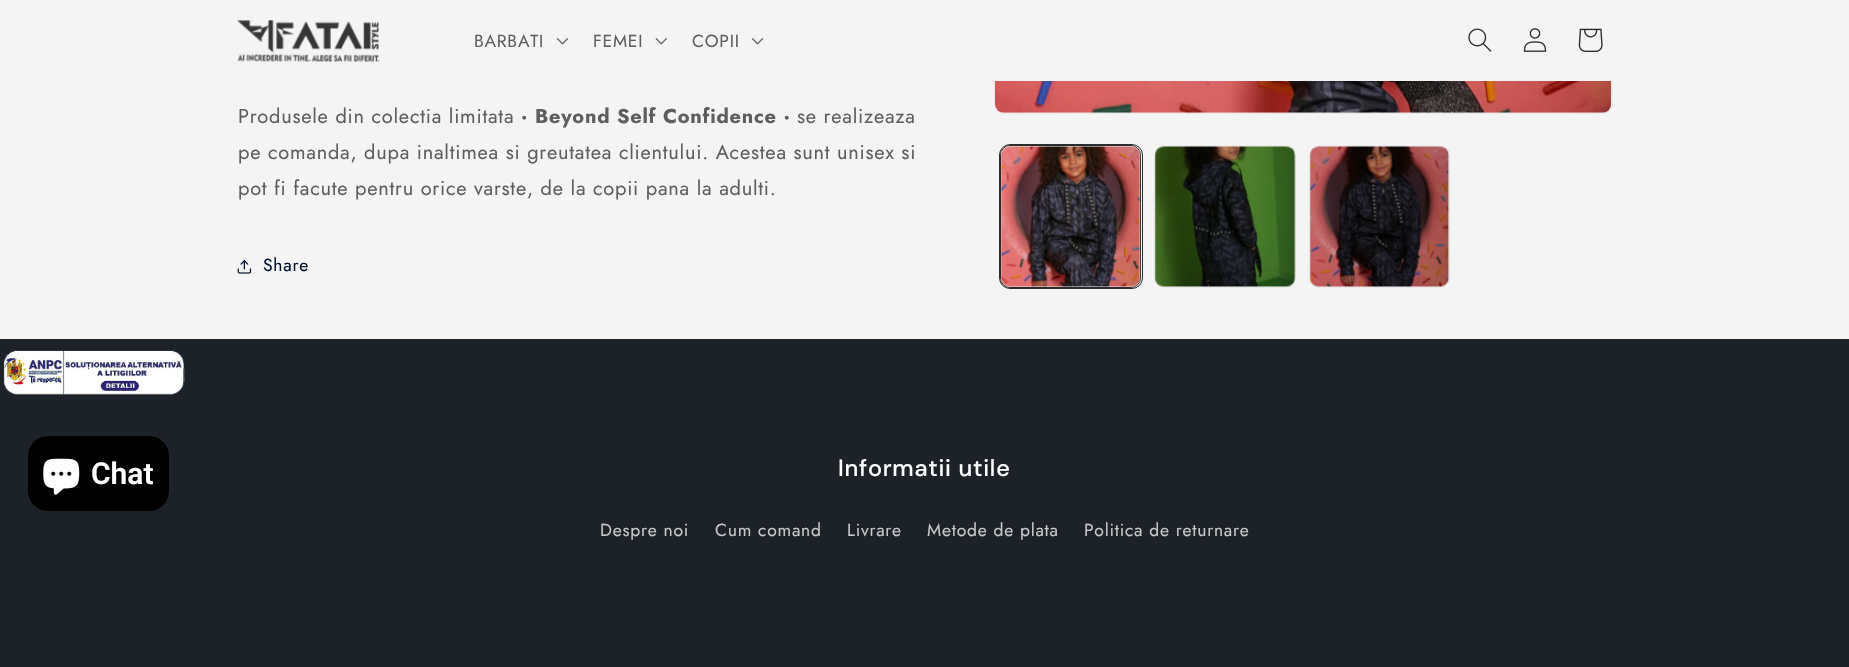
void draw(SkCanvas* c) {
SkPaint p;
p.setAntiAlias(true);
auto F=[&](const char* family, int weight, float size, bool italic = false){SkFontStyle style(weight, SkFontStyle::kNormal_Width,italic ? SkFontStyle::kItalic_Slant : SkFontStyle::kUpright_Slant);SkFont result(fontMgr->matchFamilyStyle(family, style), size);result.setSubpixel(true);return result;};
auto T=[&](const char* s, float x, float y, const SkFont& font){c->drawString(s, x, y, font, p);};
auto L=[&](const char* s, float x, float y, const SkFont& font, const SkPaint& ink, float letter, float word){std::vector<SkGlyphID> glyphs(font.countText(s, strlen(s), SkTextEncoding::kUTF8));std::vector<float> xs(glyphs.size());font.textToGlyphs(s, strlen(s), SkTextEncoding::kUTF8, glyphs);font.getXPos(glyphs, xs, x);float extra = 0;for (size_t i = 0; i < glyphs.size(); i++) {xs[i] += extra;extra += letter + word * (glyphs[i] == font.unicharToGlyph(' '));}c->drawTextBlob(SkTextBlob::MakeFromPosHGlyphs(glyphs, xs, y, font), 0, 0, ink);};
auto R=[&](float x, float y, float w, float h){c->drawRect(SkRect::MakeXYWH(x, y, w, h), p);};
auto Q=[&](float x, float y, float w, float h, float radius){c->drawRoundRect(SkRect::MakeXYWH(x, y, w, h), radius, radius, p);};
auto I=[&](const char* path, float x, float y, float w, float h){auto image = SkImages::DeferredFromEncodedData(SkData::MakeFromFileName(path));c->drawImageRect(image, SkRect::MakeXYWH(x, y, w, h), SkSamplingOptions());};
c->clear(0xfff4f4f4);
p.setStroke(true);
p.setStrokeWidth(1);
p.setColor(0xffeaeaea);
c->drawRoundRect(SkRect::MakeXYWH(994.5,-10.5,618,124),9.5,9.5,p);
p.setStroke(false);
p.setColor(0xfff4f4f4);
R(994,0,619,81);
I("1.png",237,20,142,42);
auto f1 = F("Jost",400,17.5);
p.setColor(0xff5d5e5f);
L("BARBATI",474,47,f1,p,.75,0);
I("2.png",556,38,13,7);
L("FEMEI",593,47,f1,p,.75,0);
I("3.png",655,38,12,7);
L("COPII",692,47,f1,p,.75,0);
I("2.png",751,38,13,7);
I("4.png",1468,28,24,24);
I("5.png",1523,28,24,24);
I("6.png",1578,28,25,24);
auto f2 = F("Jost",400,20);
L("Produsele din colectia limitata",238,123,f2,p,.75,0);
auto f3 = F("Jost",700,20);
L("· Beyond Self Confidence ·",521,123,f3,p,.75,0);
L("se realizeaza",797,123,f2,p,.75,0);
L("pe comanda, dupa inaltimea si greutatea clientului. Acestea sunt unisex si",238,159,f2,p,.75,0);
L("pot fi facute pentru orice varste, de la copii pana la adulti.",238,195,f2,p,.75,0);
I("7.png",237,260,15,14);
p.setColor(0xff001128);
L("Share",263,271,f1,p,.75,0);
I("8.png",995,81,617,32);
p.setStroke(true);
p.setColor(0xff2b2c2d);
c->drawRoundRect(SkRect::MakeXYWH(999.5,144.5,143,144),10.5,10.5,p);
c->drawRoundRect(SkRect::MakeXYWH(1000.5,145.5,140,142),9.5,9.5,p);
I("9.png",1001,146,140,141);
p.setColor(0xffeaeaea);
c->drawRoundRect(SkRect::MakeXYWH(1154.5,145.5,141,142),9.5,9.5,p);
I("10.png",1154,146,142,141);
c->drawRoundRect(SkRect::MakeXYWH(1309.5,145.5,140,142),9.5,9.5,p);
I("11.png",1309,146,141,141);
p.setStroke(false);
p.setColor(0xff1c2228);
R(0,339,1849,328);
I("12.png",3,350,182,45);
p.setColor(0xff000000);
Q(28,436,141,75,20);
I("13.png",43,458,37,37);
auto f4 = F("Roboto",600,30);
p.setColor(0xffffffff);
T("Chat",91,484,f4);
auto f5 = F("DM Sans",500,23.5);
L("Informatii utile",838,476,f5,p,.75,0);
p.setColor(0xffc6c8c9);
L("Despre noi",600,536,f1,p,.75,0);
L("Cum comand",715,536,f1,p,.75,0);
L("Livrare",847,536,f1,p,.75,0);
L("Metode de plata",927,536,f1,p,.75,0);
L("Politica de returnare",1084,536,f1,p,.75,0);
}
